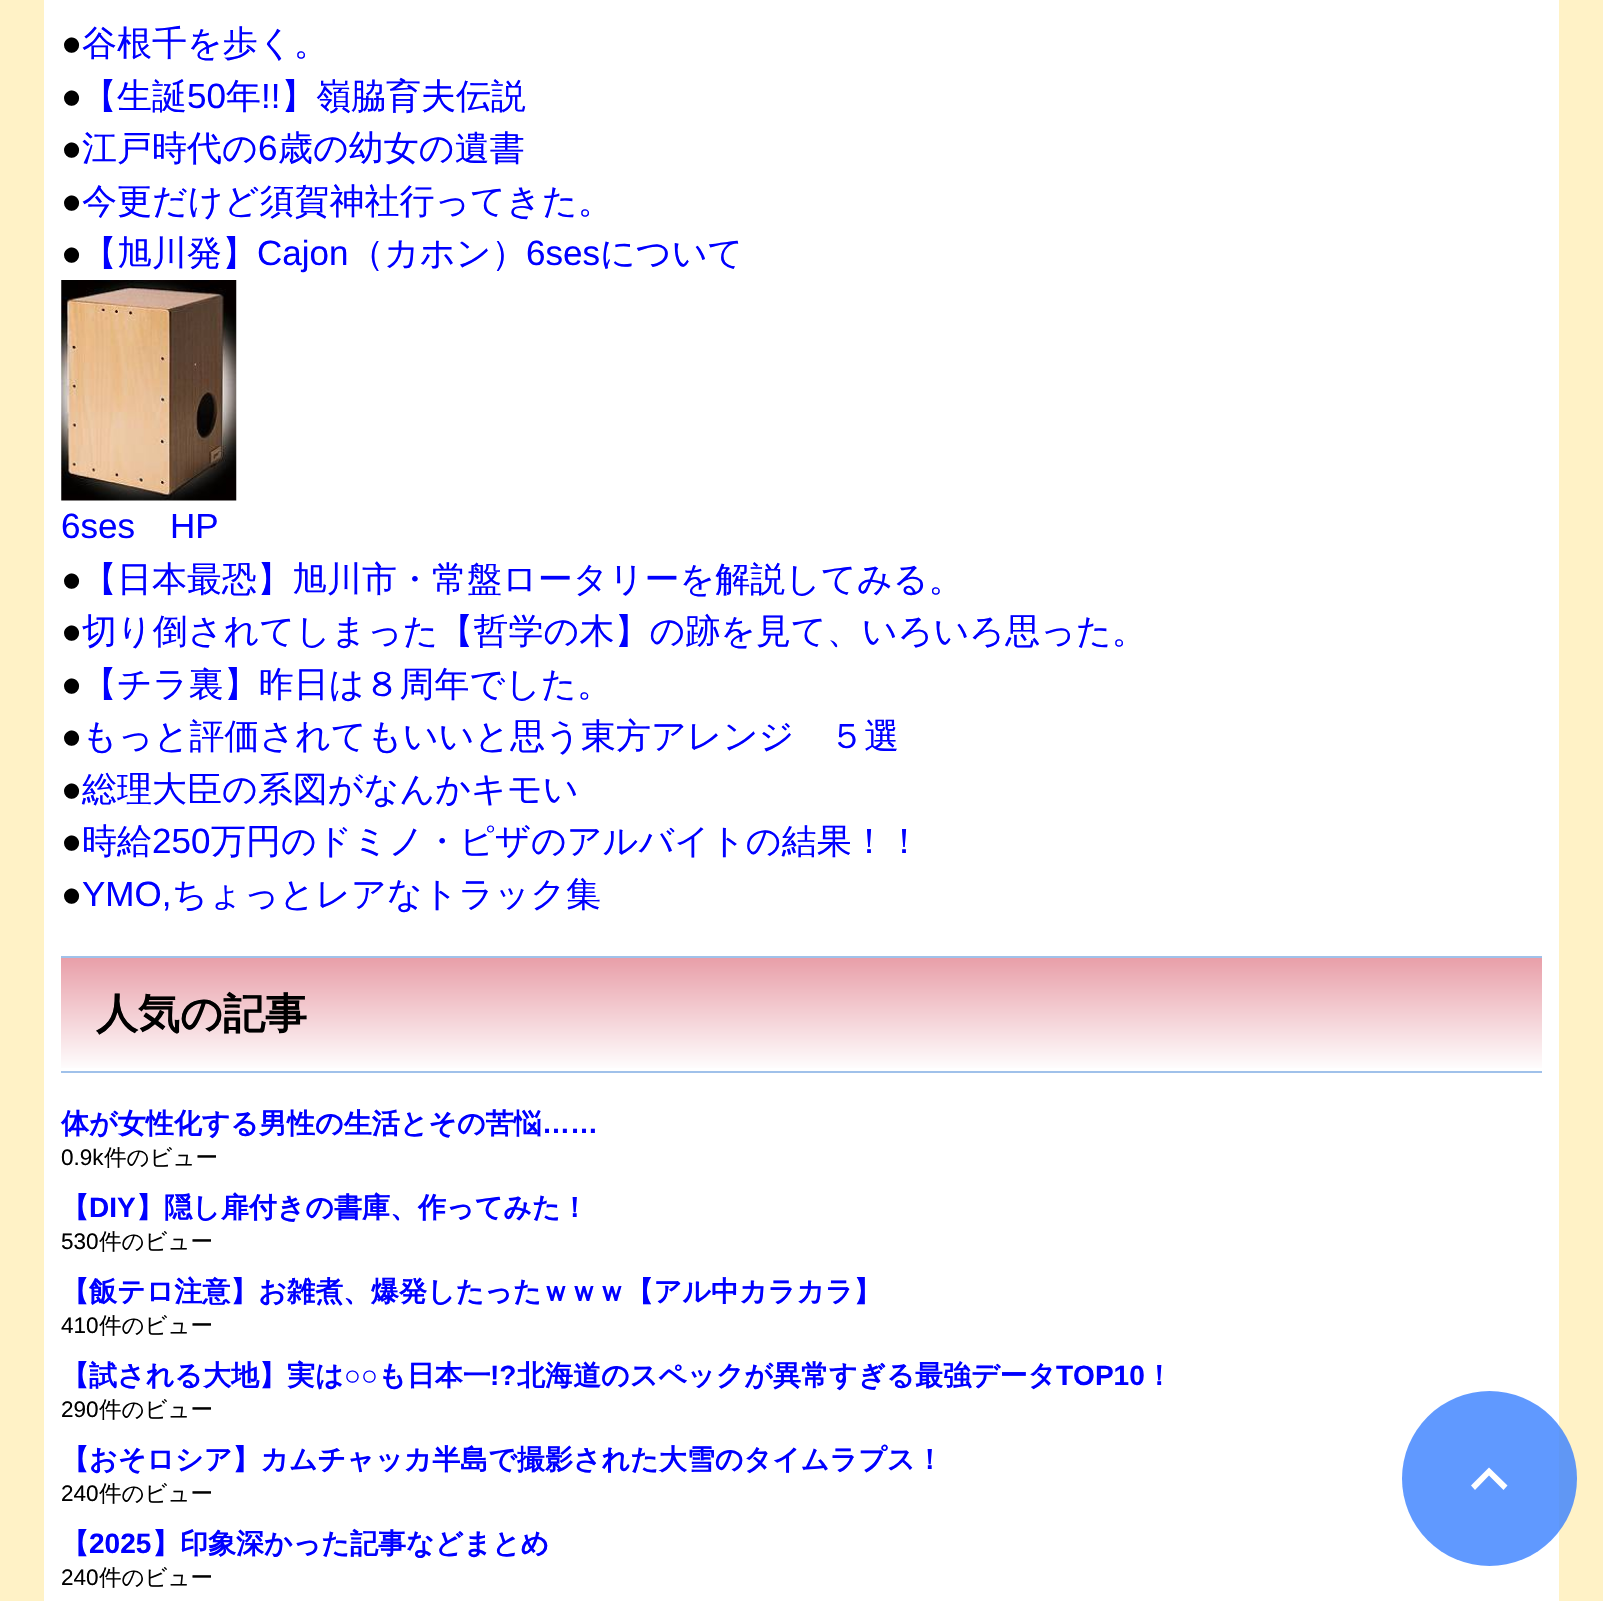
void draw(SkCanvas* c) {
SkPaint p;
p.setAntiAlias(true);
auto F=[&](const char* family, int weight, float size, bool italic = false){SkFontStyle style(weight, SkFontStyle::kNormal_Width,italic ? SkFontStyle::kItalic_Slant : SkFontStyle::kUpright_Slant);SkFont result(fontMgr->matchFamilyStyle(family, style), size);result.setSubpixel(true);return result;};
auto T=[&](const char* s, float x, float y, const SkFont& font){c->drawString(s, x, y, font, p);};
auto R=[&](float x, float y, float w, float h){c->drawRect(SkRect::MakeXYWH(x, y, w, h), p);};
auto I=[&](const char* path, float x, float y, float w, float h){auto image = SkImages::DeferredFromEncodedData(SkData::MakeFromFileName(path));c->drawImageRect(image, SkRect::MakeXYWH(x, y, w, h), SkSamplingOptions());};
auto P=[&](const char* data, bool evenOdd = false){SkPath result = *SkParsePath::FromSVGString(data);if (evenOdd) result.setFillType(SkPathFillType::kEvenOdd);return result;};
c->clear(0xfffff2c6);
p.setColor(0xffffffff);
R(44,0,1515,1601);
auto f1 = F("Liberation Sans",400,35);
p.setColor(0xff000000);
T("●",61,55,f1);
auto f2 = F("WenQuanYi Zen Hei",500,35);
p.setColor(0xff0000ff);
T("谷根千を歩く。",82,55,f2);
p.setColor(0xff000000);
T("●",61,108,f1);
p.setColor(0xff0000ff);
T("【生誕",82,108,f2);
T("50",187,108,f1);
T("年",226,108,f2);
T("!!",261,108,f1);
T("】嶺脇育夫伝説",281,108,f2);
p.setColor(0xff000000);
T("●",61,160,f1);
p.setColor(0xff0000ff);
T("江戸時代の",82,160,f2);
T("6",258,160,f1);
T("歳の幼女の遺書",278,160,f2);
p.setColor(0xff000000);
T("●",61,213,f1);
p.setColor(0xff0000ff);
T("今更だけど須賀神社行ってきた。",82,213,f2);
p.setColor(0xff000000);
T("●",61,265,f1);
p.setColor(0xff0000ff);
T("【旭川発】",82,265,f2);
T("Cajon",257,265,f1);
T("（カホン）",349,265,f2);
T("6ses",526,265,f1);
T("について",600,265,f2);
I("1.png",61,280,176,221);
T("6ses",61,538,f1);
T("HP",170,538,f1);
p.setColor(0xff000000);
T("●",61,591,f1);
p.setColor(0xff0000ff);
T("【日本最恐】旭川市・常盤ロータリーを解説してみる。",82,591,f2);
p.setColor(0xff000000);
T("●",61,643,f1);
p.setColor(0xff0000ff);
T("切り倒されてしまった【哲学の木】の跡を見て、いろいろ思った。",82,643,f2);
p.setColor(0xff000000);
T("●",61,696,f1);
p.setColor(0xff0000ff);
T("【チラ裏】昨日は８周年でした。",82,696,f2);
p.setColor(0xff000000);
T("●",61,748,f1);
p.setColor(0xff0000ff);
T("もっと評価されてもいいと思う東方アレンジ　５選",82,748,f2);
p.setColor(0xff000000);
T("●",61,801,f1);
p.setColor(0xff0000ff);
T("総理大臣の系図がなんかキモい",82,801,f2);
p.setColor(0xff000000);
T("●",61,853,f1);
p.setColor(0xff0000ff);
T("時給",82,853,f2);
T("250",152,853,f1);
T("万円のドミノ・ピザのアルバイトの結果！！",211,853,f2);
p.setColor(0xff000000);
T("●",61,906,f1);
p.setColor(0xff0000ff);
T("YMO,",82,906,f1);
T("ちょっとレアなトラック集",172,906,f2);
{
const SkColor colors[] = {0xffffffff,0xffe89ea8};
const float stops[] = {0,1};
const SkPoint ends[] = {{802,1071}, {802,957}};
p.setShader(SkGradientShader::MakeLinear(ends, colors, stops, 2, SkTileMode::kClamp));
p.setAlpha(255);
}
R(61,958,1481,110);
p.setShader(nullptr);
p.setColor(0xffa0c1ea);
R(61,956,1481,2);
R(61,1071,1481,2);
auto f3 = F("WenQuanYi Zen Hei",700,42);
p.setColor(0xff000000);
T("人気の記事",96,1028,f3);
auto f4 = F("WenQuanYi Zen Hei",700,28);
p.setColor(0xff0000ff);
T("体が女性化する男性の生活とその苦悩",61,1133,f4);
auto f5 = F("Liberation Sans",700,28);
T("……",542,1133,f5);
auto f6 = F("Liberation Sans",400,22.5);
p.setColor(0xff000000);
T("0.9k",61,1165,f6);
auto f7 = F("WenQuanYi Zen Hei",500,22.5);
T("件のビュー",104,1165,f7);
p.setColor(0xff0000ff);
T("【",61,1217,f4);
T("DIY",89,1217,f5);
T("】隠し扉付きの書庫、作ってみた！",136,1217,f4);
p.setColor(0xff000000);
T("530",61,1249,f6);
T("件のビュー",99,1249,f7);
p.setColor(0xff0000ff);
T("【飯テロ注意】お雑煮、爆発したったｗｗｗ【アル中カラカラ】",61,1301,f4);
p.setColor(0xff000000);
T("410",61,1333,f6);
T("件のビュー",99,1333,f7);
p.setColor(0xff0000ff);
T("【試される大地】実は",61,1385,f4);
T("○○",344,1385,f5);
T("も日本一",378,1385,f4);
T("!?",490,1385,f5);
T("北海道のスペックが異常すぎる最強データ",517,1385,f4);
T("TOP10",1056,1385,f5);
T("！",1145,1385,f4);
p.setColor(0xff000000);
T("290",61,1417,f6);
T("件のビュー",99,1417,f7);
p.setColor(0xff0000ff);
T("【おそロシア】カムチャッカ半島で撮影された大雪のタイムラプス！",61,1469,f4);
p.setColor(0xff000000);
T("240",61,1501,f6);
T("件のビュー",99,1501,f7);
p.setColor(0xff0000ff);
T("【",61,1553,f4);
T("2025",89,1553,f5);
T("】印象深かった記事などまとめ",152,1553,f4);
p.setColor(0xff000000);
T("240",61,1585,f6);
T("件のビュー",99,1585,f7);
p.setColor(0xcc3880ff);
c->drawCircle(1489.5,1478.5,87.5,p);
p.setColor(0xffffffff);
c->drawPath(P("M1489 1475.5l-14 14.5l-4-4.5l18-18l18.5 18l-4 4.5z"),p);
}
